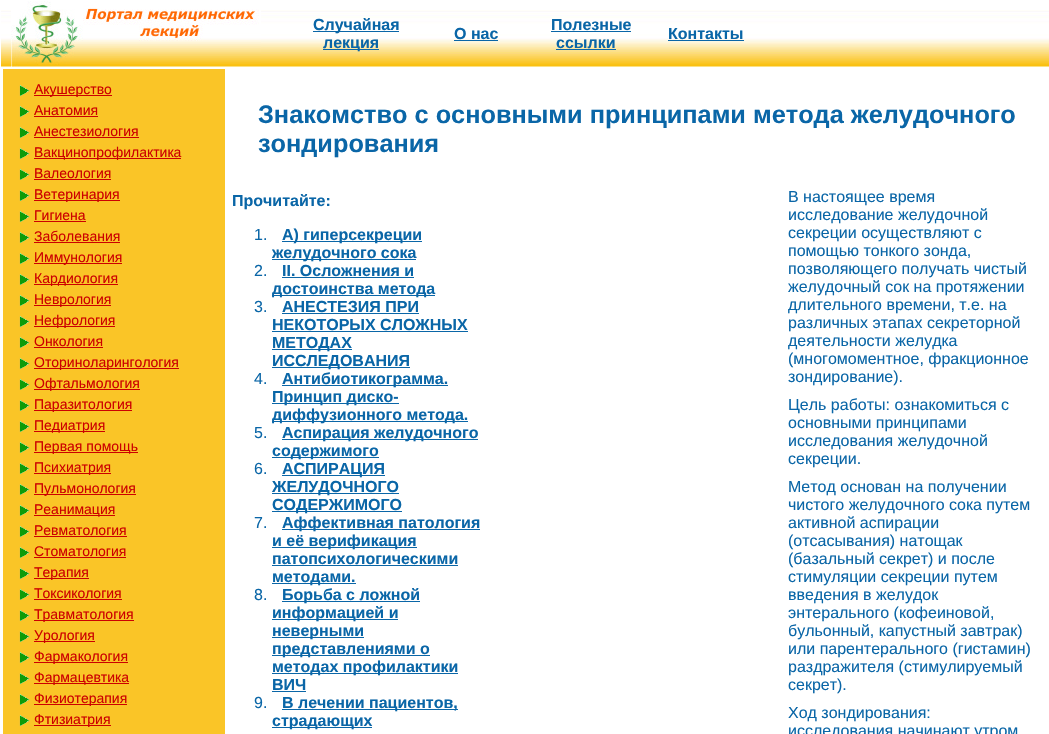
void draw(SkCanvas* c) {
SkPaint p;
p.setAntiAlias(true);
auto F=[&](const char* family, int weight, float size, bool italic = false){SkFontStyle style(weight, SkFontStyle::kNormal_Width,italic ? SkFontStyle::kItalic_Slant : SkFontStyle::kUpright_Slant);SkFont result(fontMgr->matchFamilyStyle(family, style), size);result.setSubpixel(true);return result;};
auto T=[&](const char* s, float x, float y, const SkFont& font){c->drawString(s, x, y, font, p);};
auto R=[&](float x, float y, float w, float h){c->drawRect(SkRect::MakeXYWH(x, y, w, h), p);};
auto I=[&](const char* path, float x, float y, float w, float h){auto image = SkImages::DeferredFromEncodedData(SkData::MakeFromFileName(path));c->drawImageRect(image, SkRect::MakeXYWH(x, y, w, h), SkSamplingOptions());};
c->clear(0xffffffff);
I("1.png",1,10,1048,57);
I("2.png",11,1,250,66);
p.setColor(0xff0a66a7);
R(313,31,86,1);
auto f1 = F("Liberation Sans",700,16);
T("Случайная",313,30,f1);
R(323,49,56,1);
T("лекция",323,48,f1);
T("О нас",454,39,f1);
R(454,40,44,1);
T("Полезные",551,30,f1);
R(551,31,80,1);
T("cсылки",556,48,f1);
R(556,49,60,1);
T("Контакты",668,39,f1);
R(668,40,76,1);
p.setColor(0xfffac527);
R(3,69,222,665);
I("3.png",19,85,11,11);
p.setColor(0xffcc0000);
R(34,95,78,1);
auto f2 = F("Liberation Sans",400,14);
T("Акушерство",34,94,f2);
I("3.png",19,106,11,11);
T("Анатомия",34,115,f2);
R(34,116,64,1);
I("3.png",19,127,11,11);
T("Анестезиология",34,136,f2);
R(34,137,105,1);
I("3.png",19,148,11,11);
R(34,158,147,1);
T("Вакцинопрофилактика",34,157,f2);
I("3.png",19,169,11,11);
T("Валеология",34,178,f2);
R(34,179,77,1);
I("3.png",19,190,11,11);
R(34,200,86,1);
T("Ветеринария",34,199,f2);
I("3.png",19,211,11,11);
T("Гигиена",34,220,f2);
R(34,221,52,1);
I("3.png",19,232,11,11);
T("Заболевания",34,241,f2);
R(34,242,86,1);
I("3.png",19,253,11,11);
R(34,263,88,1);
T("Иммунология",34,262,f2);
I("3.png",19,274,11,11);
R(34,284,84,1);
T("Кардиология",34,283,f2);
I("3.png",19,295,11,11);
R(34,305,77,1);
T("Неврология",34,304,f2);
I("3.png",19,316,11,11);
R(34,326,81,1);
T("Нефрология",34,325,f2);
I("3.png",19,337,11,11);
T("Онкология",34,346,f2);
R(34,347,69,1);
I("3.png",19,358,11,11);
R(34,368,145,1);
T("Оториноларингология",34,367,f2);
I("3.png",19,379,11,11);
R(34,389,106,1);
T("Офтальмология",34,388,f2);
I("3.png",19,400,11,11);
R(34,410,98,1);
T("Паразитология",34,409,f2);
I("3.png",19,421,11,11);
R(34,431,71,1);
T("Педиатрия",34,430,f2);
I("3.png",19,442,11,11);
R(34,452,104,1);
T("Первая помощь",34,451,f2);
I("3.png",19,463,11,11);
R(34,473,77,1);
T("Психиатрия",34,472,f2);
I("3.png",19,484,11,11);
R(34,494,102,1);
T("Пульмонология",34,493,f2);
I("3.png",19,505,11,11);
R(34,515,81,1);
T("Реанимация",34,514,f2);
I("3.png",19,526,11,11);
T("Ревматология",34,535,f2);
R(34,536,93,1);
I("3.png",19,547,11,11);
T("Стоматология",34,556,f2);
R(34,557,92,1);
I("3.png",19,568,11,11);
R(34,578,55,1);
T("Терапия",34,577,f2);
I("3.png",19,589,11,11);
T("Токсикология",34,598,f2);
R(34,599,88,1);
I("3.png",19,610,11,11);
R(34,620,100,1);
T("Травматология",34,619,f2);
I("3.png",19,631,11,11);
R(34,641,61,1);
T("Урология",34,640,f2);
I("3.png",19,652,11,11);
R(34,662,94,1);
T("Фармакология",34,661,f2);
I("3.png",19,673,11,11);
R(34,683,95,1);
T("Фармацевтика",34,682,f2);
I("3.png",19,694,11,11);
R(34,704,93,1);
T("Физиотерапия",34,703,f2);
I("3.png",19,715,11,11);
R(34,725,77,1);
T("Фтизиатрия",34,724,f2);
auto f3 = F("Liberation Sans",700,25.3);
p.setColor(0xff0a66a7);
T("Знакомство с основными принципами метода желудочного",258,123,f3);
T("зондирования",258,152,f3);
T("Прочитайте:",232,206,f1);
auto f4 = F("Liberation Sans",400,16);
T("1.",254,240,f4);
R(282,241,140,1);
T("A) гиперсекреции",282,240,f1);
R(272,259,144,1);
T("желудочного сока",272,258,f1);
T("2.",254,276,f4);
T("II. Осложнения и",282,276,f1);
R(282,277,132,1);
R(272,295,163,1);
T("достоинства метода",272,294,f1);
T("3.",254,312,f4);
T("АНЕСТЕЗИЯ ПРИ",282,312,f1);
R(282,313,137,1);
T("НЕКОТОРЫХ СЛОЖНЫХ",272,330,f1);
R(272,331,196,1);
R(272,349,80,1);
T("МЕТОДАХ",272,348,f1);
R(272,367,138,1);
T("ИССЛЕДОВАНИЯ",272,366,f1);
T("4.",254,384,f4);
R(282,385,166,1);
T("Антибиотикограмма.",282,384,f1);
R(272,403,127,1);
T("Принцип диско-",272,402,f1);
R(272,421,196,1);
T("диффузионного метода.",272,420,f1);
T("5.",254,438,f4);
R(282,439,196,1);
T("Аспирация желудочного",282,438,f1);
R(272,457,107,1);
T("содержимого",272,456,f1);
T("6.",254,474,f4);
R(282,475,103,1);
T("АСПИРАЦИЯ",282,474,f1);
R(272,493,127,1);
T("ЖЕЛУДОЧНОГО",272,492,f1);
R(272,511,130,1);
T("СОДЕРЖИМОГО",272,510,f1);
T("7.",254,528,f4);
R(282,529,198,1);
T("Аффективная патология",282,528,f1);
R(272,547,145,1);
T("и её верификация",272,546,f1);
T("патопсихологическими",272,564,f1);
R(272,565,186,1);
R(272,583,84,1);
T("методами.",272,582,f1);
T("8.",254,600,f4);
R(282,601,138,1);
T("Борьба с ложной",282,600,f1);
R(272,619,126,1);
T("информацией и",272,618,f1);
R(272,637,92,1);
T("неверными",272,636,f1);
R(272,655,158,1);
T("представлениями о",272,654,f1);
R(272,673,186,1);
T("методах профилактики",272,672,f1);
T("ВИЧ",272,690,f1);
R(272,691,34,1);
T("9.",254,708,f4);
R(282,709,176,1);
T("В лечении пациентов,",282,708,f1);
R(272,727,100,1);
T("страдающих",272,726,f1);
T("В настоящее время",788,202,f4);
T("исследование желудочной",788,220,f4);
T("секреции осуществляют с",788,238,f4);
T("помощью тонкого зонда,",788,256,f4);
T("позволяющего получать чистый",788,274,f4);
T("желудочный сок на протяжении",788,292,f4);
T("длительного времени, т.е. на",788,310,f4);
T("различных этапах секреторной",788,328,f4);
T("деятельности желудка",788,346,f4);
T("(многомоментное, фракционное",788,364,f4);
T("зондирование).",788,382,f4);
T("Цель работы: ознакомиться с",788,410,f4);
T("основными принципами",788,428,f4);
T("исследования желудочной",788,446,f4);
T("секреции.",788,464,f4);
T("Метод основан на получении",788,492,f4);
T("чистого желудочного сока путем",788,510,f4);
T("активной аспирации",788,528,f4);
T("(отсасывания) натощак",788,546,f4);
T("(базальный секрет) и после",788,564,f4);
T("стимуляции секреции путем",788,582,f4);
T("введения в желудок",788,600,f4);
T("энтерального (кофеиновой,",788,618,f4);
T("бульонный, капустный завтрак)",788,636,f4);
T("или парентерального (гистамин)",788,654,f4);
T("раздражителя (стимулируемый",788,672,f4);
T("секрет).",788,690,f4);
T("Ход зондирования:",788,718,f4);
T("исследования начинают утром",788,736,f4);
}
